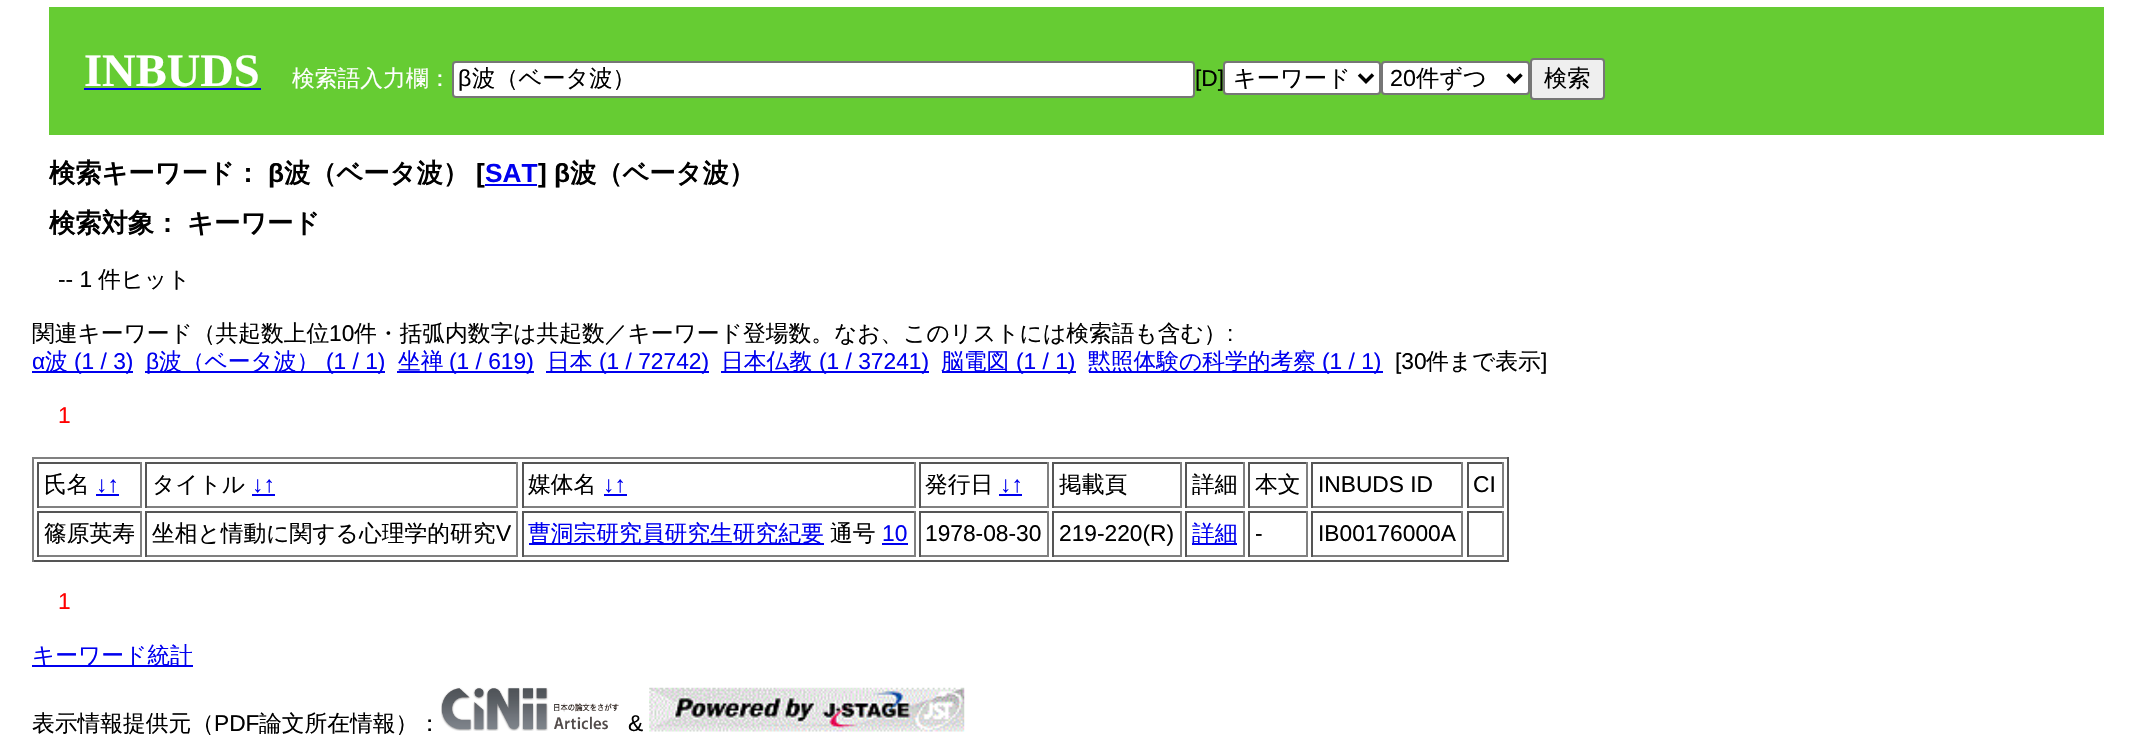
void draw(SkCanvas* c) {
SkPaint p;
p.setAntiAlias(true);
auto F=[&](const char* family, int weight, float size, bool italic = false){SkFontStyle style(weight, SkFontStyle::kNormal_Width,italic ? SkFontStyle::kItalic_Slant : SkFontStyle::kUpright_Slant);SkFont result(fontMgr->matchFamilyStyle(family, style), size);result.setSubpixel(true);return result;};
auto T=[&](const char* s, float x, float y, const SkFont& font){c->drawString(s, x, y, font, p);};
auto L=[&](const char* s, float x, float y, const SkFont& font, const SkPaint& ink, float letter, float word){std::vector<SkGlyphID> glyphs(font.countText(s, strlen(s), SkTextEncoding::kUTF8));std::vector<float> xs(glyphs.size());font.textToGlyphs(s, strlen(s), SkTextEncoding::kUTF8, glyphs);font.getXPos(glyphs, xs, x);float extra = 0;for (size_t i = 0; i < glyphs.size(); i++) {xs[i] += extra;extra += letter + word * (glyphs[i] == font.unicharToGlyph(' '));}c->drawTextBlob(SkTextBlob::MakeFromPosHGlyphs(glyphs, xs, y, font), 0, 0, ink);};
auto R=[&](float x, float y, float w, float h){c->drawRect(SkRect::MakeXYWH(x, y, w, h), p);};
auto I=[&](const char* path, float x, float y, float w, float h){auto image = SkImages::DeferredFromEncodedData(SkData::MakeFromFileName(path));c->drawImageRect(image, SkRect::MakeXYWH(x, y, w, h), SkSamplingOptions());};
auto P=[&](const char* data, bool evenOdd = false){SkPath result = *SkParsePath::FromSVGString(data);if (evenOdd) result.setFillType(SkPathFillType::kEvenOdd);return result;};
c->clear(0xffffffff);
p.setColor(0xff66cc33);
R(49,7,2055,128);
auto f1 = F("Liberation Serif",700,46.5);
p.setColor(0xffffffff);
T("INBUDS",84,86,f1);
p.setColor(0xff0000ee);
R(84,88,177,2);
auto f2 = F("WenQuanYi Zen Hei",500,22.75);
p.setColor(0xffffffff);
T("検索語入力欄：",292,86,f2);
c->drawRoundRect(SkRect::MakeXYWH(453,62,741,35),3,3,p);
p.setStroke(true);
p.setStrokeWidth(2);
p.setColor(0xff767676);
c->drawRoundRect(SkRect::MakeXYWH(453,62,741,35),3,3,p);
auto f3 = F("Liberation Sans",400,23.25);
p.setStroke(false);
p.setColor(0xff000000);
T("β",458,86,f3);
auto f4 = F("WenQuanYi Zen Hei",500,23.25);
T("波（ベータ波）",472,86,f4);
auto f5 = F("Liberation Sans",400,22.75);
T("[D]",1195,86,f5);
p.setColor(0xffffffff);
c->drawRoundRect(SkRect::MakeXYWH(1224,62,156,32),3,3,p);
p.setStroke(true);
p.setColor(0xff767676);
c->drawRoundRect(SkRect::MakeXYWH(1224,62,156,32),3,3,p);
p.setStrokeWidth(3.5);
p.setColor(0xff000000);
c->drawPath(P("M1359 74.5l7 7l7-7"),p);
p.setStroke(false);
T("キーワード",1233,86,f4);
p.setColor(0xffffffff);
c->drawRoundRect(SkRect::MakeXYWH(1382,62,147,32),3,3,p);
p.setStroke(true);
p.setStrokeWidth(2);
p.setColor(0xff767676);
c->drawRoundRect(SkRect::MakeXYWH(1382,62,147,32),3,3,p);
p.setStrokeWidth(3.5);
p.setColor(0xff000000);
c->drawPath(P("M1507.5 74.5l7 7l7-7"),p);
p.setStroke(false);
T("20",1390,86,f3);
T("件ずつ",1416,86,f4);
p.setColor(0xffefefef);
c->drawRoundRect(SkRect::MakeXYWH(1531,59,73,40),3,3,p);
p.setStroke(true);
p.setStrokeWidth(2);
p.setColor(0xff767676);
c->drawRoundRect(SkRect::MakeXYWH(1531,59,73,40),3,3,p);
p.setStroke(false);
p.setColor(0xff000000);
T("検索",1544,86,f4);
auto f6 = F("WenQuanYi Zen Hei",700,26.25);
T("検索キーワード：",49,182,f6);
auto f7 = F("Liberation Sans",700,26.25);
T("β",268,182,f7);
T("波（ベータ波）",284,182,f6);
T("[",476,182,f7);
p.setColor(0xff0000ee);
T("SAT",485,182,f7);
R(485,184,52,2);
p.setColor(0xff000000);
T("] β",538,182,f7);
T("波（ベータ波）",570,182,f6);
L("検索対象： キーワード",49,232,f6,p,0,-1);
T("-- 1",58,287,f5);
T("件ヒット",98,287,f2);
T("関連キーワード（共起数上位",32,341,f2);
T("10",329,341,f5);
T("件・括弧内数字は共起数／キーワード登場数。なお、このリストには検索語も含む）",354,341,f2);
T(":",1227,341,f5);
p.setColor(0xff0000ee);
T("α",32,369,f5);
R(32,371,101,2);
T("波",45,369,f2);
T("(1 / 3)",74,369,f5);
R(145,371,240,2);
T("β",146,369,f5);
T("波（ベータ波）",159,369,f2);
T("(1 / 1)",326,369,f5);
R(397,371,137,2);
T("坐禅",398,369,f2);
T("(1 / 619)",449,369,f5);
R(546,371,163,2);
T("日本",547,369,f2);
T("(1 / 72742)",599,369,f5);
R(721,371,208,2);
T("日本仏教",721,369,f2);
T("(1 / 37241)",819,369,f5);
R(942,371,134,2);
T("脳電図",941,369,f2);
T("(1 / 1)",1016,369,f5);
R(1089,371,294,2);
T("黙照体験の科学的考察",1088,369,f2);
T("(1 / 1)",1322,369,f5);
p.setColor(0xff000000);
T("[30",1395,369,f5);
T("件まで表示",1426,369,f2);
T("]",1541,369,f5);
p.setColor(0xffff0000);
T("1",58,423,f5);
p.setColor(0xff808080);
R(32,457,1477,2);
p.setColor(0xff555555);
R(1507,457,2,105);
R(32,560,1477,2);
p.setColor(0xff808080);
R(32,457,2,105);
p.setColor(0xff555555);
R(37,462,105,2);
p.setColor(0xff808080);
R(140,462,2,46);
R(37,506,105,2);
p.setColor(0xff555555);
R(37,462,2,46);
p.setColor(0xff000000);
T("氏名",44,492,f2);
p.setColor(0xff0000ee);
T("↓↑",96,492,f5);
R(96,494,23,2);
p.setColor(0xff555555);
R(145,462,373,2);
p.setColor(0xff808080);
R(516,462,2,46);
R(145,506,373,2);
p.setColor(0xff555555);
R(145,462,2,46);
p.setColor(0xff000000);
T("タイトル",152,492,f2);
p.setColor(0xff0000ee);
T("↓↑",252,492,f5);
R(252,494,23,2);
p.setColor(0xff555555);
R(522,462,393,2);
p.setColor(0xff808080);
R(914,462,2,46);
R(522,506,393,2);
p.setColor(0xff555555);
R(522,462,2,46);
p.setColor(0xff000000);
T("媒体名",528,492,f2);
p.setColor(0xff0000ee);
T("↓↑",603,492,f5);
R(604,494,23,2);
p.setColor(0xff555555);
R(919,462,129,2);
p.setColor(0xff808080);
R(1047,462,2,46);
R(919,506,129,2);
p.setColor(0xff555555);
R(919,462,2,46);
p.setColor(0xff000000);
T("発行日",925,492,f2);
p.setColor(0xff0000ee);
T("↓↑",1000,492,f5);
R(999,494,23,2);
p.setColor(0xff555555);
R(1052,462,129,2);
p.setColor(0xff808080);
R(1180,462,2,46);
R(1052,506,129,2);
p.setColor(0xff555555);
R(1052,462,2,46);
p.setColor(0xff000000);
T("掲載頁",1059,492,f2);
p.setColor(0xff555555);
R(1185,462,59,2);
p.setColor(0xff808080);
R(1243,462,2,46);
R(1185,506,59,2);
p.setColor(0xff555555);
R(1185,462,2,46);
p.setColor(0xff000000);
T("詳細",1192,492,f2);
p.setColor(0xff555555);
R(1248,462,59,2);
p.setColor(0xff808080);
R(1306,462,2,46);
R(1248,506,59,2);
p.setColor(0xff555555);
R(1248,462,2,46);
p.setColor(0xff000000);
T("本文",1255,492,f2);
p.setColor(0xff555555);
R(1311,462,152,2);
p.setColor(0xff808080);
R(1461,462,2,46);
R(1311,506,152,2);
p.setColor(0xff555555);
R(1311,462,2,46);
p.setColor(0xff000000);
T("INBUDS ID",1318,492,f5);
p.setColor(0xff555555);
R(1467,462,36,2);
p.setColor(0xff808080);
R(1502,462,2,46);
R(1467,506,36,2);
p.setColor(0xff555555);
R(1467,462,2,46);
p.setColor(0xff000000);
T("CI",1473,492,f5);
p.setColor(0xff555555);
R(37,511,105,2);
p.setColor(0xff808080);
R(140,511,2,46);
R(37,555,105,2);
p.setColor(0xff555555);
R(37,511,2,46);
p.setColor(0xff000000);
T("篠原英寿",44,541,f2);
p.setColor(0xff555555);
R(145,511,373,2);
p.setColor(0xff808080);
R(516,511,2,46);
R(145,555,373,2);
p.setColor(0xff555555);
R(145,511,2,46);
p.setColor(0xff000000);
T("坐相と情動に関する心理学的研究",152,541,f2);
T("V",496,541,f5);
p.setColor(0xff555555);
R(522,511,393,2);
p.setColor(0xff808080);
R(914,511,2,46);
R(522,555,393,2);
p.setColor(0xff555555);
R(522,511,2,46);
p.setColor(0xff0000ee);
R(529,543,295,2);
T("曹洞宗研究員研究生研究紀要",528,541,f2);
p.setColor(0xff000000);
T("通号",830,541,f2);
p.setColor(0xff0000ee);
T("10",882,541,f5);
R(882,543,26,2);
p.setColor(0xff555555);
R(919,511,129,2);
p.setColor(0xff808080);
R(1047,511,2,46);
R(919,555,129,2);
p.setColor(0xff555555);
R(919,511,2,46);
p.setColor(0xff000000);
T("1978-08-30",925,541,f5);
p.setColor(0xff555555);
R(1052,511,129,2);
p.setColor(0xff808080);
R(1180,511,2,46);
R(1052,555,129,2);
p.setColor(0xff555555);
R(1052,511,2,46);
p.setColor(0xff000000);
T("219-220(R)",1059,541,f5);
p.setColor(0xff555555);
R(1185,511,59,2);
p.setColor(0xff808080);
R(1243,511,2,46);
R(1185,555,59,2);
p.setColor(0xff555555);
R(1185,511,2,46);
p.setColor(0xff0000ee);
R(1192,543,45,2);
T("詳細",1192,541,f2);
p.setColor(0xff555555);
R(1248,511,59,2);
p.setColor(0xff808080);
R(1306,511,2,46);
R(1248,555,59,2);
p.setColor(0xff555555);
R(1248,511,2,46);
p.setColor(0xff000000);
T("-",1255,541,f5);
p.setColor(0xff555555);
R(1311,511,152,2);
p.setColor(0xff808080);
R(1461,511,2,46);
R(1311,555,152,2);
p.setColor(0xff555555);
R(1311,511,2,46);
p.setColor(0xff000000);
T("IB00176000A",1318,541,f5);
p.setColor(0xff555555);
R(1467,511,36,2);
p.setColor(0xff808080);
R(1502,511,2,46);
R(1467,555,36,2);
p.setColor(0xff555555);
R(1467,511,2,46);
p.setColor(0xffff0000);
T("1",58,609,f5);
p.setColor(0xff0000ee);
R(32,665,161,2);
T("キーワード統計",32,663,f2);
p.setColor(0xff000000);
T("表示情報提供元（",32,731,f2);
T("PDF",214,731,f5);
T("論文所在情報）：",259,731,f2);
I("1.png",441,687,178,44);
T("&",628,731,f5);
I("2.png",649,687,316,45);
}
